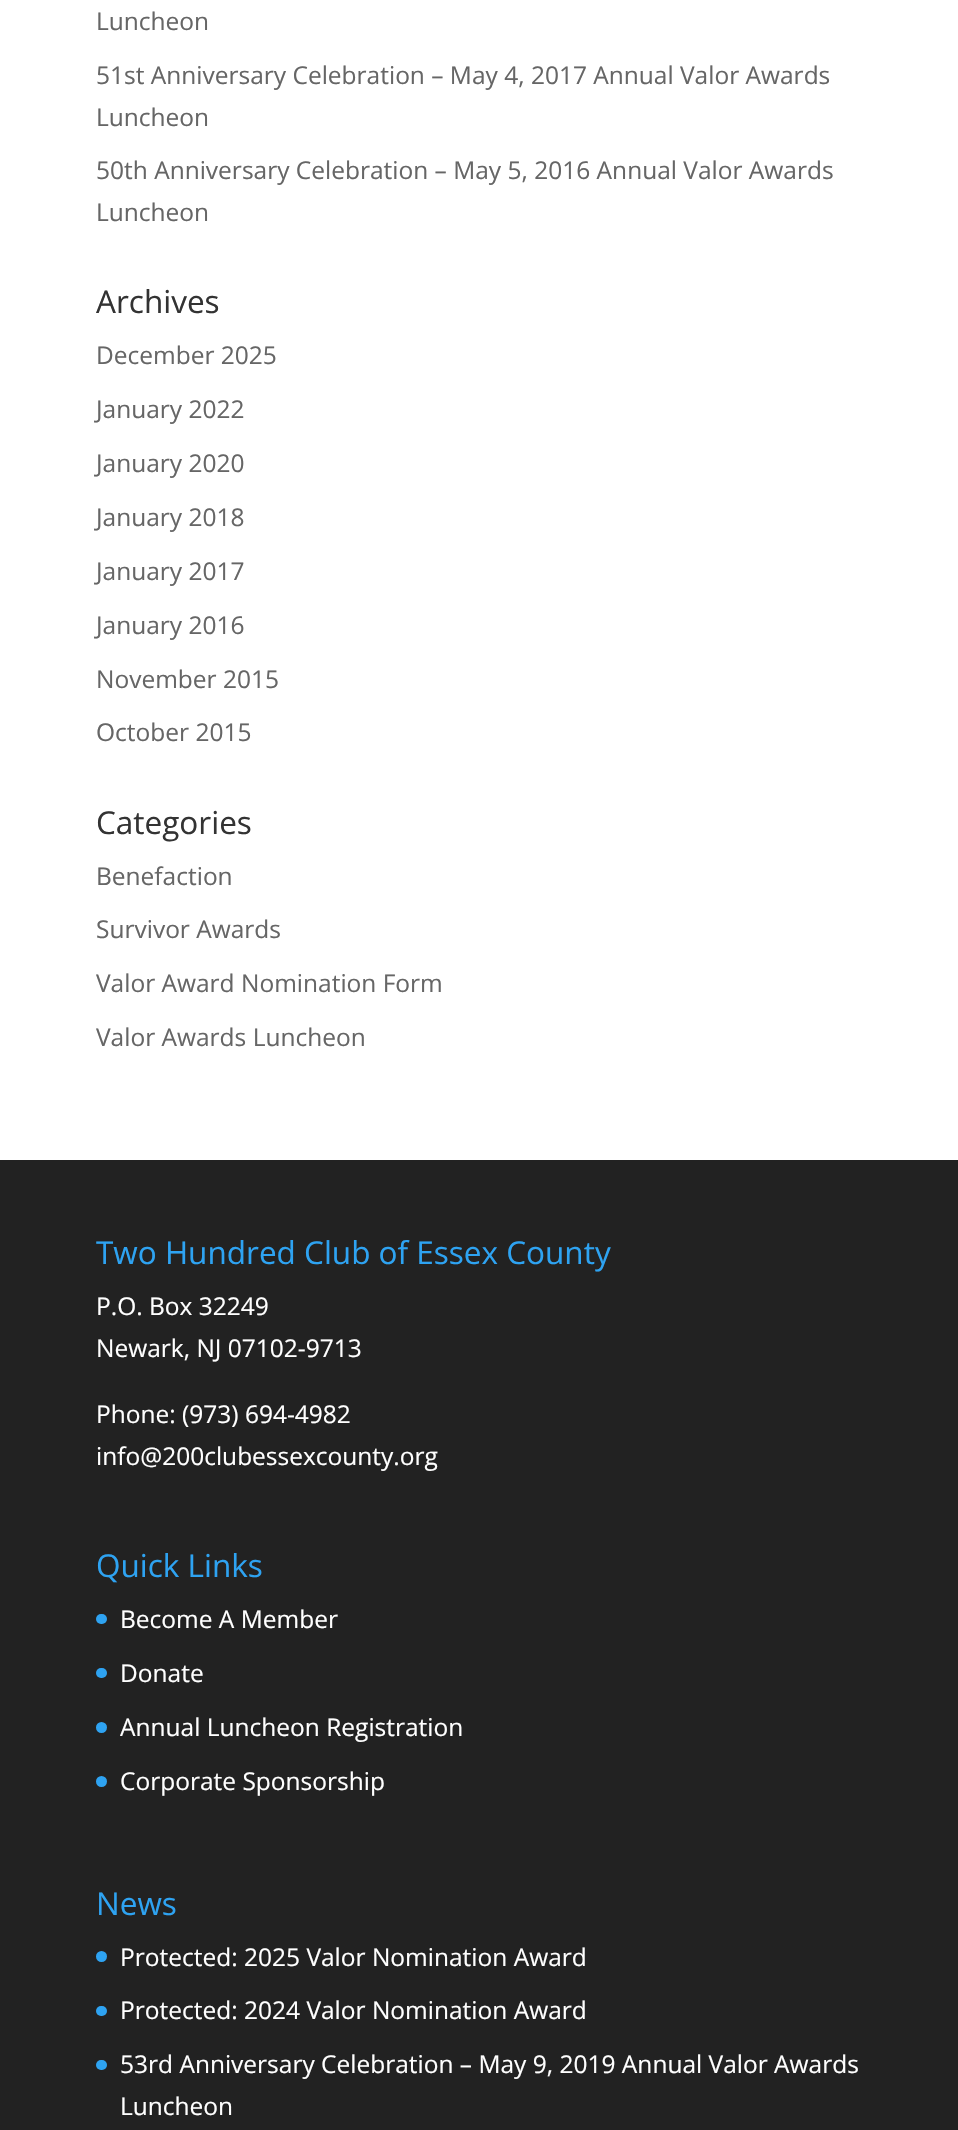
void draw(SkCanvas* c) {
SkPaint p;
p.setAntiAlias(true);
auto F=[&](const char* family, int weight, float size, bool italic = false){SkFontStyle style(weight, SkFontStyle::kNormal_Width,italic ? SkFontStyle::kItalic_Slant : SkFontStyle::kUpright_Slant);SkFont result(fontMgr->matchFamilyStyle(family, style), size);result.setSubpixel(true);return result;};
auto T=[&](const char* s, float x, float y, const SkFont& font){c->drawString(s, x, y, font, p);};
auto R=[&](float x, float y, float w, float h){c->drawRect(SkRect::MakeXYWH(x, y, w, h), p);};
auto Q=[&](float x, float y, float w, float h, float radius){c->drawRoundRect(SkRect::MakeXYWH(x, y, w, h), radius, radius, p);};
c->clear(0xffffffff);
auto f1 = F("Open Sans",400,24.5);
p.setColor(0xff666666);
T("Luncheon",96,30,f1);
T("51st Anniversary Celebration – May 4, 2017 Annual Valor Awards",96,84,f1);
T("Luncheon",96,126,f1);
T("50th Anniversary Celebration – May 5, 2016 Annual Valor Awards",96,179,f1);
T("Luncheon",96,221,f1);
auto f2 = F("Open Sans",400,31.5);
p.setColor(0xff333333);
T("Archives",96,313,f2);
p.setColor(0xff666666);
T("December 2025",96,364,f1);
T("January 2022",96,418,f1);
T("January 2020",96,472,f1);
T("January 2018",96,526,f1);
T("January 2017",96,580,f1);
T("January 2016",96,634,f1);
T("November 2015",96,688,f1);
T("October 2015",96,741,f1);
p.setColor(0xff333333);
T("Categories",96,834,f2);
p.setColor(0xff666666);
T("Benefaction",96,885,f1);
T("Survivor Awards",96,938,f1);
T("Valor Award Nomination Form",96,992,f1);
T("Valor Awards Luncheon",96,1046,f1);
p.setColor(0xff222222);
R(0,1160,958,970);
p.setColor(0xff2ea3f2);
T("Two Hundred Club of Essex County",96,1264,f2);
p.setColor(0xffffffff);
T("P.O. Box 32249",96,1315,f1);
T("Newark, NJ 07102-9713",96,1357,f1);
T("Phone: (973) 694-4982",96,1423,f1);
T("info@200clubessexcounty.org",96,1465,f1);
p.setColor(0xff2ea3f2);
T("Quick Links",96,1577,f2);
Q(96,1614,11,10,5);
p.setColor(0xffffffff);
T("Become A Member",120,1628,f1);
p.setColor(0xff2ea3f2);
Q(96,1668,11,10,5);
p.setColor(0xffffffff);
T("Donate",120,1682,f1);
p.setColor(0xff2ea3f2);
c->drawCircle(101.5,1727.5,5.5,p);
p.setColor(0xffffffff);
T("Annual Luncheon Registration",120,1736,f1);
p.setColor(0xff2ea3f2);
c->drawCircle(101.5,1781.5,5.5,p);
p.setColor(0xffffffff);
T("Corporate Sponsorship",120,1790,f1);
p.setColor(0xff2ea3f2);
T("News",96,1915,f2);
c->drawCircle(101.5,1956.5,5.5,p);
p.setColor(0xffffffff);
T("Protected: 2025 Valor Nomination Award",120,1966,f1);
p.setColor(0xff2ea3f2);
Q(96,2006,11,10,5);
p.setColor(0xffffffff);
T("Protected: 2024 Valor Nomination Award",120,2019,f1);
p.setColor(0xff2ea3f2);
Q(96,2060,11,10,5);
p.setColor(0xffffffff);
T("53rd Anniversary Celebration – May 9, 2019 Annual Valor Awards",120,2073,f1);
T("Luncheon",120,2115,f1);
}
